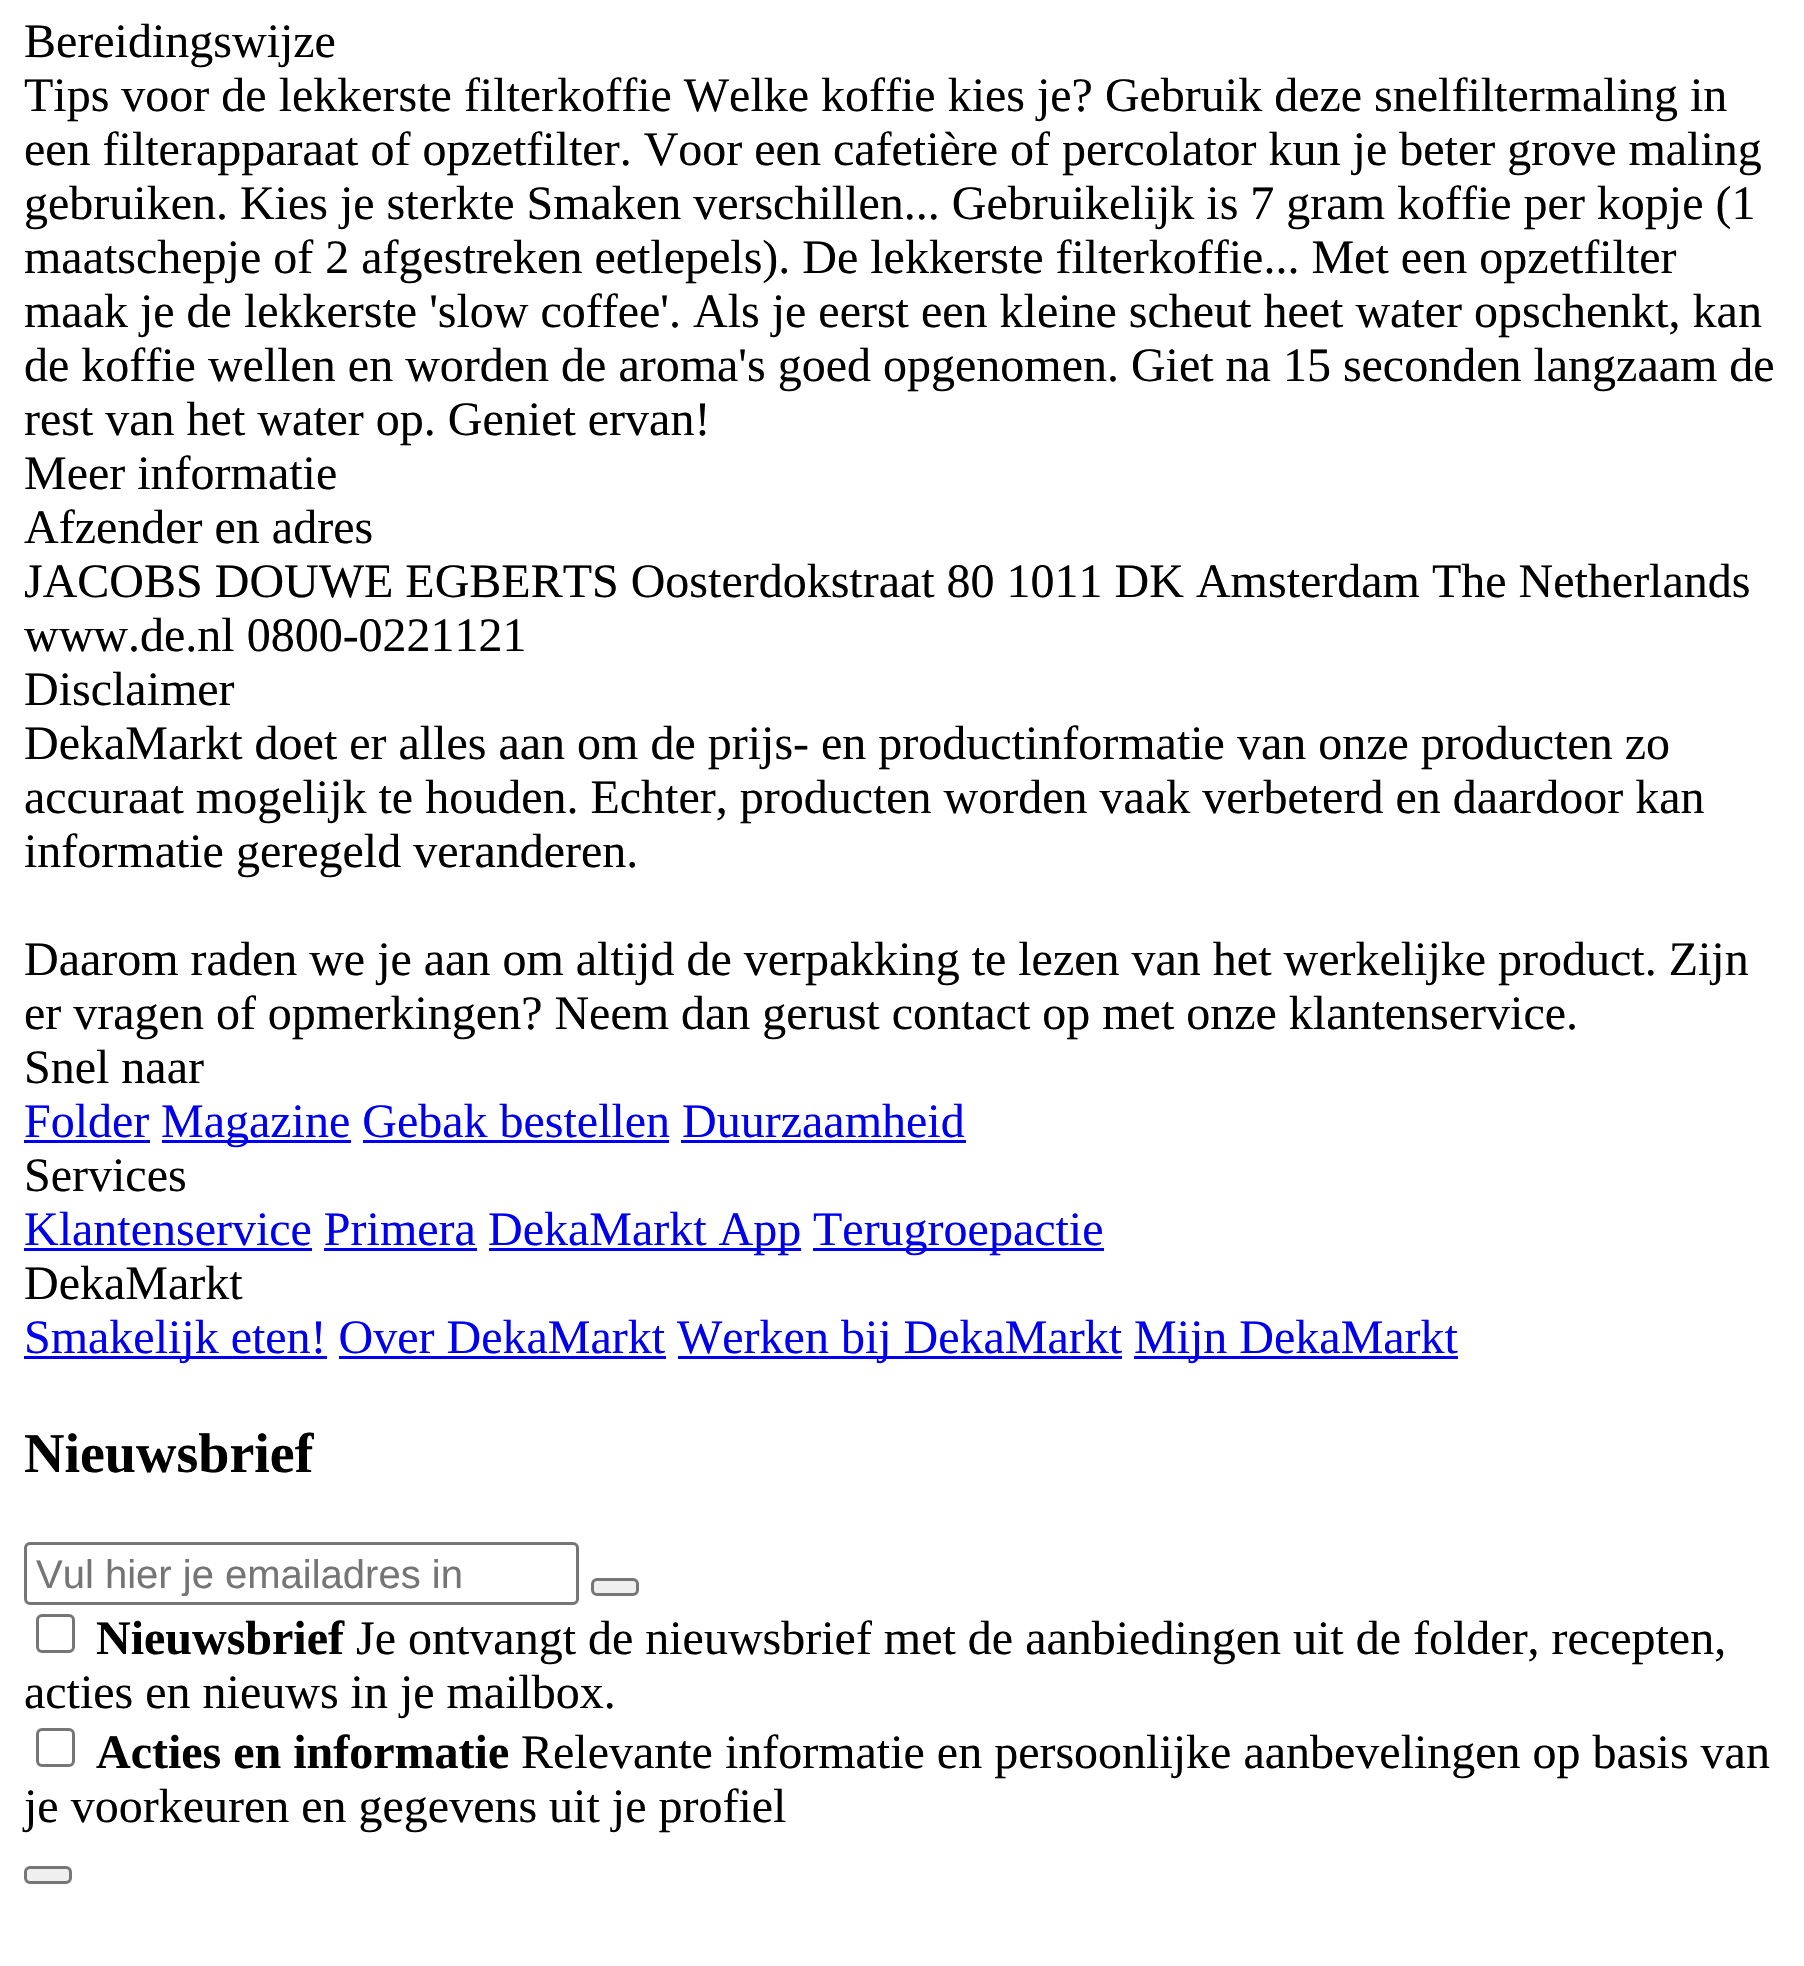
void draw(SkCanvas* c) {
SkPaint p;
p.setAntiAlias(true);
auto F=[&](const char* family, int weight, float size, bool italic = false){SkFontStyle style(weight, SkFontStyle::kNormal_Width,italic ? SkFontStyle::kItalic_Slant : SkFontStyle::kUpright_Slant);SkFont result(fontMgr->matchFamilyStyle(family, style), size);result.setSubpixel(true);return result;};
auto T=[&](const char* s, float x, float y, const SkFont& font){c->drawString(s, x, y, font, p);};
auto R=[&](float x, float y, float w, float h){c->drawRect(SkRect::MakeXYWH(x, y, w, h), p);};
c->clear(0xffffffff);
auto f1 = F("Liberation Serif",400,48);
p.setColor(0xff000000);
T("Bereidingswijze",24,57,f1);
T("Tips voor de lekkerste filterkoffie Welke koffie kies je? Gebruik deze snelfiltermaling in",24,111,f1);
T("een filterapparaat of opzetfilter. Voor een cafetière of percolator kun je beter grove maling",24,165,f1);
T("gebruiken. Kies je sterkte Smaken verschillen... Gebruikelijk is 7 gram koffie per kopje (1",24,219,f1);
T("maatschepje of 2 afgestreken eetlepels). De lekkerste filterkoffie... Met een opzetfilter",24,273,f1);
T("maak je de lekkerste 'slow coffee'. Als je eerst een kleine scheut heet water opschenkt, kan",24,327,f1);
T("de koffie wellen en worden de aroma's goed opgenomen. Giet na 15 seconden langzaam de",24,381,f1);
T("rest van het water op. Geniet ervan!",24,435,f1);
T("Meer informatie",24,489,f1);
T("Afzender en adres",24,543,f1);
T("JACOBS DOUWE EGBERTS Oosterdokstraat 80 1011 DK Amsterdam The Netherlands",24,597,f1);
T("www.de.nl 0800-0221121",24,651,f1);
T("Disclaimer",24,705,f1);
T("DekaMarkt doet er alles aan om de prijs- en productinformatie van onze producten zo",24,759,f1);
T("accuraat mogelijk te houden. Echter, producten worden vaak verbeterd en daardoor kan",24,813,f1);
T("informatie geregeld veranderen.",24,867,f1);
T("Daarom raden we je aan om altijd de verpakking te lezen van het werkelijke product. Zijn",24,975,f1);
T("er vragen of opmerkingen? Neem dan gerust contact op met onze klantenservice.",24,1029,f1);
T("Snel naar",24,1083,f1);
p.setColor(0xff0000ee);
T("Folder",24,1137,f1);
R(24,1140,126,3);
R(162,1140,189,3);
T("Magazine Gebak bestellen Duurzaamheid",161,1137,f1);
R(363,1140,306,3);
R(681,1140,285,3);
p.setColor(0xff000000);
T("Services",24,1191,f1);
p.setColor(0xff0000ee);
T("Klantenservice Primera",24,1245,f1);
R(24,1248,288,3);
R(489,1248,312,3);
T("DekaMarkt App",488,1245,f1);
R(813,1248,291,3);
T("Terugroepactie",813,1245,f1);
R(324,1248,153,3);
p.setColor(0xff000000);
T("DekaMarkt",24,1299,f1);
p.setColor(0xff0000ee);
R(24,1356,303,3);
T("Smakelijk eten! Over DekaMarkt",24,1353,f1);
R(678,1356,444,3);
T("Werken bij DekaMarkt",677,1353,f1);
R(1134,1356,324,3);
T("Mijn DekaMarkt",1134,1353,f1);
R(339,1356,327,3);
auto f2 = F("Liberation Serif",700,56);
p.setColor(0xff000000);
T("Nieuwsbrief",24,1472,f2);
p.setStroke(true);
p.setStrokeWidth(3);
p.setColor(0xff767676);
c->drawRoundRect(SkRect::MakeXYWH(25.5,1543.5,552,60),4.5,4.5,p);
c->save();
c->clipRect(SkRect::MakeXYWH(36,1551,531,45));
auto f3 = F("Liberation Sans",400,40);
p.setStroke(false);
p.setColor(0xff757575);
T("Vul hier je emailadres in",36,1588,f3);
c->restore();
p.setColor(0xffefefef);
c->drawRoundRect(SkRect::MakeXYWH(592.5,1579.5,45,15),4.5,4.5,p);
p.setStroke(true);
p.setColor(0xff767676);
c->drawRoundRect(SkRect::MakeXYWH(592.5,1579.5,45,15),4.5,4.5,p);
c->drawRoundRect(SkRect::MakeXYWH(37.5,1615.5,36,36),4.5,4.5,p);
auto f4 = F("Liberation Serif",700,48);
p.setStroke(false);
p.setColor(0xff000000);
T("Nieuwsbrief",96,1654,f4);
T("Je ontvangt de nieuwsbrief met de aanbiedingen uit de folder, recepten,",356,1654,f1);
T("acties en nieuws in je mailbox.",24,1708,f1);
p.setStroke(true);
p.setColor(0xff767676);
c->drawRoundRect(SkRect::MakeXYWH(37.5,1729.5,36,36),4.5,4.5,p);
p.setStroke(false);
p.setColor(0xff000000);
T("Acties en informatie",96,1768,f4);
T("Relevante informatie en persoonlijke aanbevelingen op basis van",521,1768,f1);
T("je voorkeuren en gegevens uit je profiel",24,1822,f1);
p.setColor(0xffefefef);
c->drawRoundRect(SkRect::MakeXYWH(25.5,1867.5,45,15),4.5,4.5,p);
p.setStroke(true);
p.setColor(0xff767676);
c->drawRoundRect(SkRect::MakeXYWH(25.5,1867.5,45,15),4.5,4.5,p);
}
